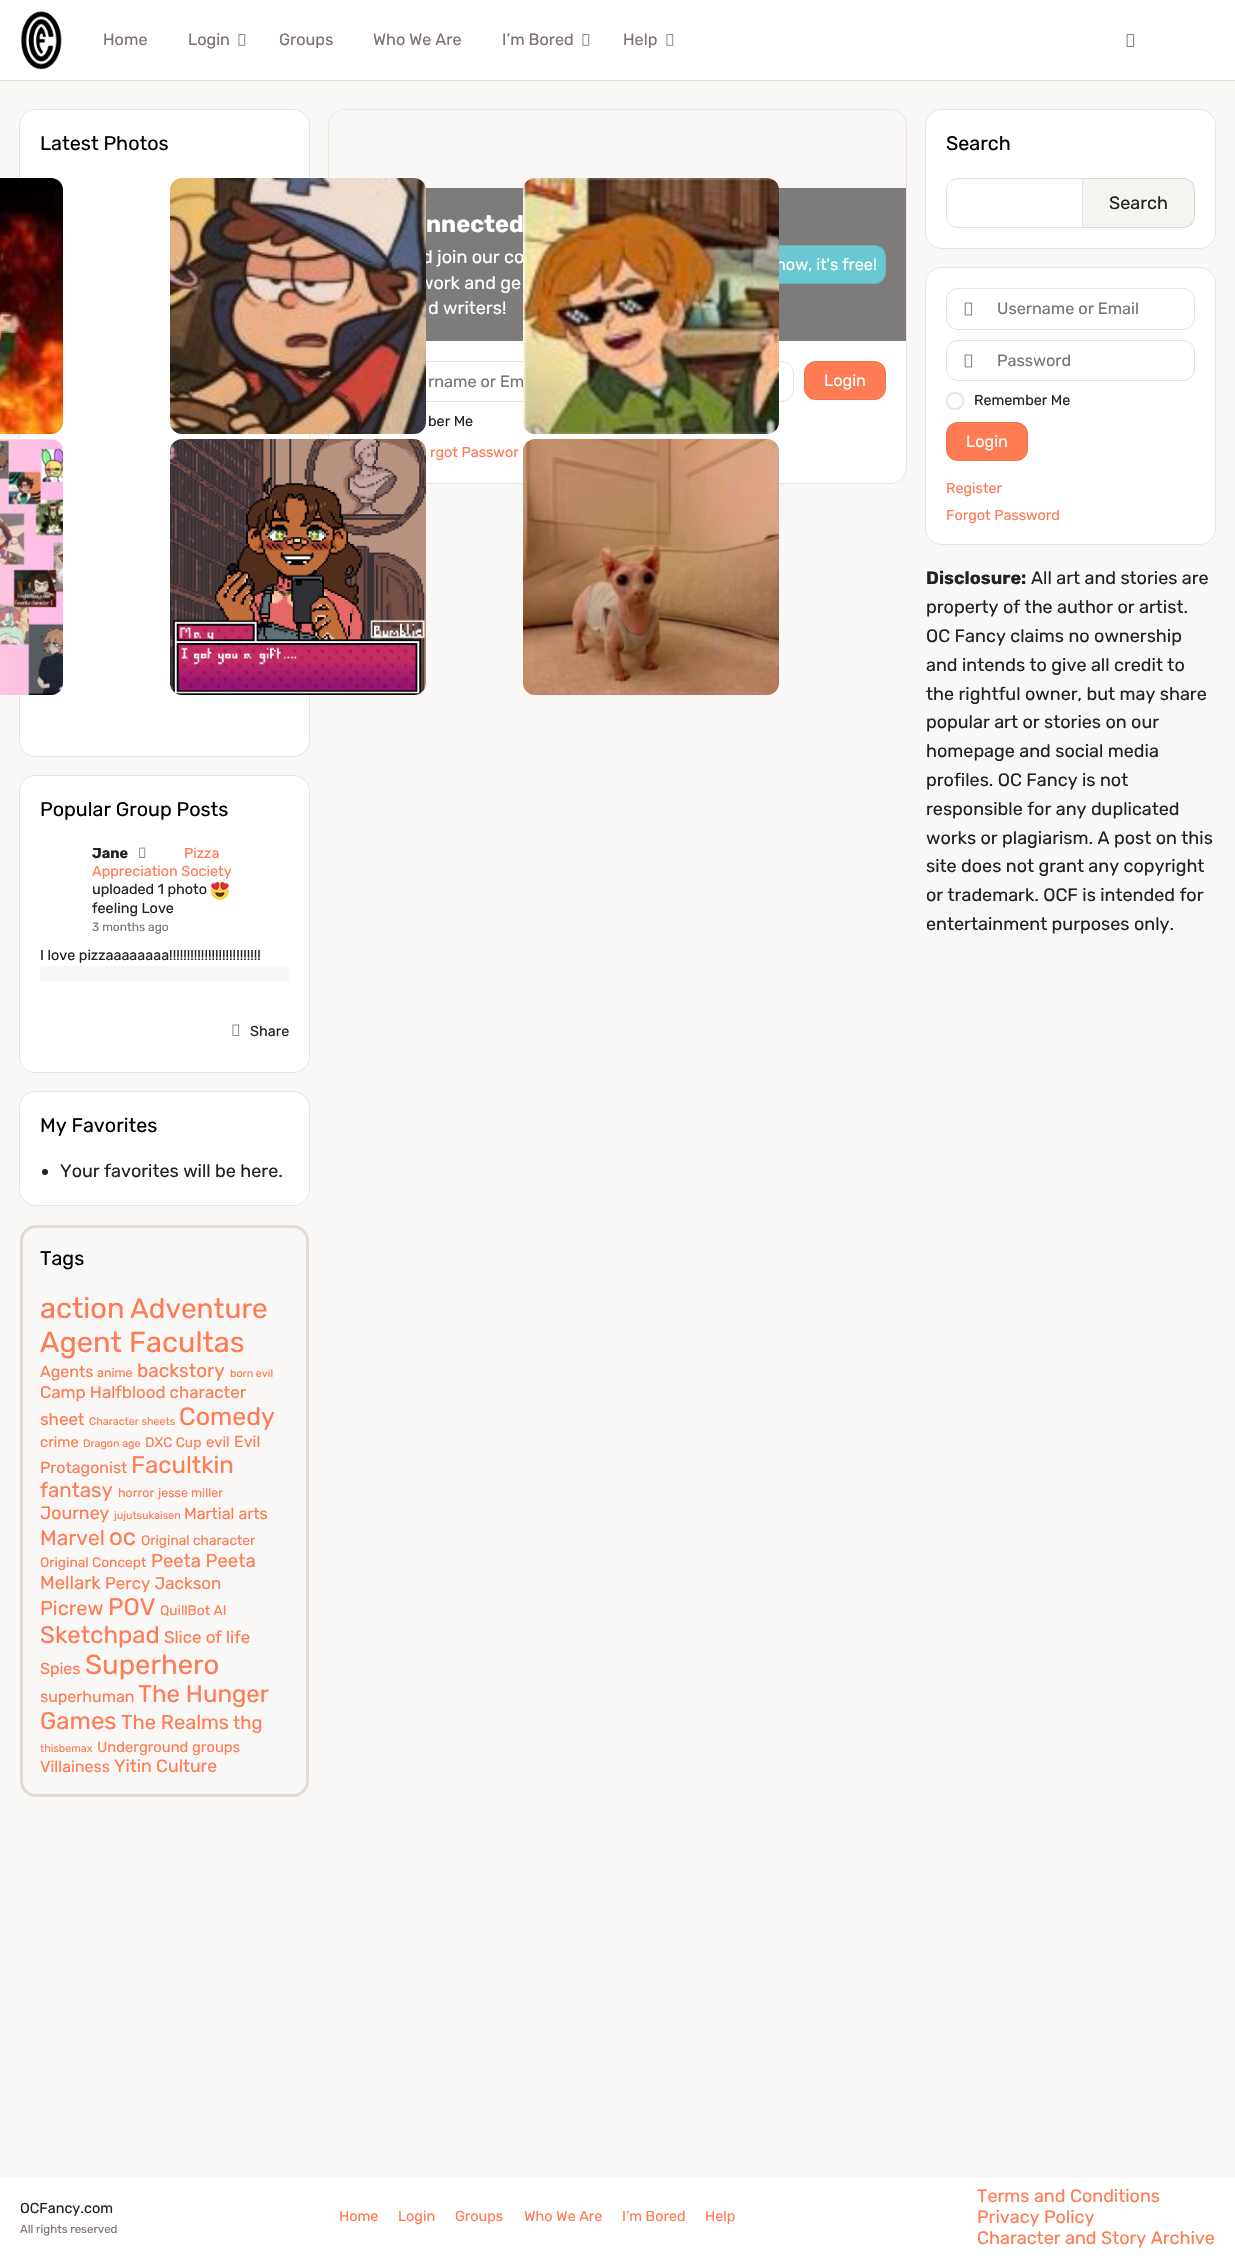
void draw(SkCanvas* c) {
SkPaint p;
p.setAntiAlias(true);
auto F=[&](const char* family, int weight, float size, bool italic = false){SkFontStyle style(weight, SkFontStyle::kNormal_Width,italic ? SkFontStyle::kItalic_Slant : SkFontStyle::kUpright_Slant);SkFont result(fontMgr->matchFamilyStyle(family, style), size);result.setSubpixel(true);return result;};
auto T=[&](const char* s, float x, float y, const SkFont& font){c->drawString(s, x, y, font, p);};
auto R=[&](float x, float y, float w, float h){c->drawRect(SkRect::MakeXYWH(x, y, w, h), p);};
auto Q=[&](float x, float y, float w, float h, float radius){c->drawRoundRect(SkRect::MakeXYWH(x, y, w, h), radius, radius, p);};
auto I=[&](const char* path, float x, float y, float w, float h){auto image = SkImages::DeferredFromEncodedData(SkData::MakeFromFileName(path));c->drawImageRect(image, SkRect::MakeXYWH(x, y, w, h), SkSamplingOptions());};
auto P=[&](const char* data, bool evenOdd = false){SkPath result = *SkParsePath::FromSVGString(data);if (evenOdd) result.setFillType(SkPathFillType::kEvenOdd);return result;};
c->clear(0xfff9f8f6);
p.setColor(0xffe0dcd8);
R(0,80,1235,1);
p.setColor(0xffffffff);
R(0,0,1235,80);
I("1.png",20,11,42,59);
auto f1 = F("Rubik",400,16.25);
p.setColor(0xff807070);
T("Home",103,45,f1);
T("Login",188,45,f1);
I("2.png",238,34,8,12);
T("Groups",279,45,f1);
T("Who We Are",373,45,f1);
T("I’m Bored",502,45,f1);
I("2.png",582,34,8,12);
T("Help",623,45,f1);
I("2.png",666,34,8,12);
I("3.png",1126,34,9,13);
p.setStroke(true);
p.setStrokeWidth(1);
p.setColor(0xffe7e4e1);
c->drawRoundRect(SkRect::MakeXYWH(19.5,109.5,290,647),16.5,16.5,p);
p.setStroke(false);
p.setColor(0xffffffff);
Q(20,110,289,646,16);
auto f2 = F("Rubik",400,19.75);
p.setColor(0xff000000);
T("Latest Photos",40,150,f2);
I("4.png",0,178,63,256);
p.setStroke(true);
p.setColor(0xffe7e4e1);
c->drawRoundRect(SkRect::MakeXYWH(328.5,109.5,578,374),16.5,16.5,p);
p.setStroke(false);
p.setColor(0xfffaf8f6);
c->drawPath(P("M345 110h545c9 0 16 7 16 16v215h-577v-215c0-9 7-16 16-16z"),p);
p.setColor(0xff7d7c7b);
R(425,188,481,153);
auto f3 = F("Rubik",400,18);
p.setColor(0xffffffff);
T("d join our co",422,263,f3);
T("work and ge",419,289,f3);
c->drawPath(P("M329 341h577v126c0 9-7 16-16 16h-545c-9 0-16-7-16-16z"),p);
p.setStroke(true);
p.setColor(0xffe5e2e0);
c->drawRect(SkRect::MakeXYWH(349.5,361.5,202,40),p);
I("5.png",170,178,256,256);
p.setStroke(false);
p.setColor(0xff6ac8d2);
Q(706,245,180,39,12);
p.setStroke(true);
p.setColor(0x1a462d21);
c->drawRoundRect(SkRect::MakeXYWH(706.5,245.5,179,38),11.5,11.5,p);
p.setStroke(false);
p.setColor(0xffffffff);
T("now, it's free!",776,270,f1);
p.setColor(0xff757575);
T("rname or Em",428,387,f1);
p.setStroke(true);
p.setColor(0xffe5e2e0);
c->drawRoundRect(SkRect::MakeXYWH(562.5,361.5,231,40),11.5,11.5,p);
I("6.png",523,178,256,256);
I("7.png",0,439,63,256);
I("8.png",170,439,256,256);
I("9.png",523,439,256,256);
p.setColor(0xffe7e4e1);
c->drawRoundRect(SkRect::MakeXYWH(19.5,775.5,290,297),16.5,16.5,p);
p.setStroke(false);
p.setColor(0xffffffff);
Q(20,776,289,296,16);
p.setColor(0xff000000);
T("Popular Group Posts",40,816,f2);
auto f4 = F("Rubik",700,14.4);
p.setColor(0xff222222);
T("Jane",92,858,f4);
I("10.png",139,847,7,11);
auto f5 = F("Rubik",400,14.4);
p.setColor(0xffff7b54);
T("Pizza",184,858,f5);
T("Appreciation Society",92,876,f5);
p.setColor(0xff222222);
T("uploaded 1 photo",92,894,f5);
I("11.png",210,881,19,19);
T("feeling Love",92,913,f5);
auto f6 = F("Rubik",400,12);
p.setColor(0xff807070);
T("3 months ago",92,931,f6);
p.setColor(0xff222222);
T("I love pizzaaaaaaaa!!!!!!!!!!!!!!!!!!!!!!!!!!",40,960,f5);
p.setColor(0xfffaf8f6);
R(40,966,249,16);
I("12.png",232,1024,8,12);
p.setColor(0xff222222);
T("Share",250,1036,f5);
p.setStroke(true);
p.setColor(0xffe7e4e1);
c->drawRoundRect(SkRect::MakeXYWH(19.5,1091.5,290,114),16.5,16.5,p);
p.setStroke(false);
p.setColor(0xffffffff);
Q(20,1092,289,113,16);
p.setColor(0xff000000);
T("My Favorites",40,1132,f2);
p.setColor(0xff222222);
c->drawCircle(45,1172,3,p);
T("Your favorites will be here.",60,1177,f3);
p.setStroke(true);
p.setStrokeWidth(3);
p.setColor(0xffe0dcd8);
c->drawRoundRect(SkRect::MakeXYWH(21.5,1226.5,286,569),14.5,14.5,p);
p.setStroke(false);
p.setColor(0xff000000);
T("Tags",40,1265,f2);
auto f7 = F("Rubik",400,29);
p.setColor(0xffff7b54);
T("action",40,1318,f7);
auto f8 = F("Rubik",400,28);
T("Adventure",130,1318,f8);
T("Agent Facultas",40,1352,f7);
auto f9 = F("Rubik",400,16);
T("Agents",40,1377,f9);
auto f10 = F("Rubik",400,12.5);
T("anime",97,1377,f10);
auto f11 = F("Rubik",400,19);
T("backstory",137,1377,f11);
auto f12 = F("Rubik",400,10.75);
T("born evil",230,1377,f12);
auto f13 = F("Rubik",400,16.9);
T("Camp Halfblood character",40,1398,f13);
T("sheet",40,1425,f13);
T("Character sheets",89,1425,f12);
auto f14 = F("Rubik",400,25);
T("Comedy",179,1425,f14);
auto f15 = F("Rubik",400,14.75);
T("crime",40,1447,f15);
T("Dragon age",83,1447,f12);
auto f16 = F("Rubik",400,13.75);
T("DXC Cup",145,1447,f16);
T("evil",206,1447,f15);
T("Evil",234,1447,f9);
T("Protagonist",40,1473,f9);
auto f17 = F("Rubik",400,24);
T("Facultkin",131,1473,f17);
auto f18 = F("Rubik",400,20.5);
T("fantasy",40,1497,f18);
T("horror",118,1497,f10);
T("jesse miller",158,1497,f10);
auto f19 = F("Rubik",400,17.75);
T("Journey",40,1519,f19);
T("jujutsukaisen",114,1519,f12);
T("Martial arts",184,1519,f9);
auto f20 = F("Rubik",400,21);
T("Marvel",40,1545,f20);
T("oc",109,1545,f17);
T("Original character",141,1545,f16);
T("Original Concept",40,1567,f16);
auto f21 = F("Rubik",400,18.5);
T("Peeta Peeta",151,1567,f21);
T("Mellark",40,1589,f21);
T("Percy Jackson",105,1589,f13);
auto f22 = F("Rubik",400,20);
T("Picrew",40,1615,f22);
T("POV",108,1615,f17);
T("QuillBot AI",160,1615,f16);
T("Sketchpad",40,1643,f17);
T("Slice of life",164,1643,f13);
T("Spies",40,1674,f9);
auto f23 = F("Rubik",400,27.5);
T("Superhero",85,1674,f23);
T("superhuman",40,1702,f9);
T("The Hunger",138,1702,f17);
T("Games",40,1729,f17);
T("The Realms",121,1729,f22);
T("thg",233,1729,f21);
T("thisbemax",40,1752,f12);
T("Underground groups",97,1752,f15);
T("Villainess",40,1772,f9);
T("Yitin Culture",114,1772,f19);
auto f24 = F("Rubik",700,23.5);
p.setColor(0xffffffff);
T("nnected",426,232,f24);
T("d writers!",428,314,f3);
p.setColor(0xffff7b54);
Q(804,361,82,39,12);
p.setStroke(true);
p.setStrokeWidth(1);
p.setColor(0x1a462d21);
c->drawRoundRect(SkRect::MakeXYWH(804.5,361.5,81,38),11.5,11.5,p);
p.setStroke(false);
p.setColor(0xffffffff);
T("Login",824,386,f1);
p.setColor(0xff222222);
T("ber Me",428,426,f5);
p.setColor(0xffff7b54);
T("rgot Passwor",430,457,f5);
p.setStroke(true);
p.setColor(0xffe7e4e1);
c->drawRoundRect(SkRect::MakeXYWH(925.5,109.5,290,139),16.5,16.5,p);
p.setStroke(false);
p.setColor(0xffffffff);
Q(926,110,289,138,16);
p.setColor(0xff000000);
T("Search",946,150,f2);
p.setStroke(true);
p.setColor(0xffe5e2e0);
c->drawPath(P("M958 178.5h124.5v49h-124.5c-6.5 0-11.5-5-11.5-11.5v-26c0-6.5 5-11.5 11.5-11.5z"),p);
p.setStroke(false);
p.setColor(0xfff6f4f1);
c->drawPath(P("M1083 178h100c6.5 0 12 5.5 12 12v26c0 6.5-5.5 12-12 12h-100z"),p);
p.setColor(0x24462d21);
c->drawPath(P("M1083 178h100c7 0 12 5 12 12v26c0 7-5 12-12 12h-100zm0 1h100c6 0 11 5 11 11v26c0 6-5 11-11 11h-100z",true),p);
p.setColor(0xff222222);
T("Search",1109,209,f3);
p.setStroke(true);
p.setColor(0xffe7e4e1);
c->drawRoundRect(SkRect::MakeXYWH(925.5,267.5,290,277),16.5,16.5,p);
p.setStroke(false);
p.setColor(0xffffffff);
Q(926,268,289,276,16);
p.setStroke(true);
p.setColor(0xffe5e2e0);
c->drawRoundRect(SkRect::MakeXYWH(946.5,288.5,248,41),11.5,11.5,p);
I("13.png",964,302,9,14);
p.setStroke(false);
p.setColor(0xff757575);
T("Username or Email",997,314,f1);
p.setStroke(true);
p.setColor(0xffe5e2e0);
c->drawRoundRect(SkRect::MakeXYWH(946.5,340.5,248,40),11.5,11.5,p);
I("13.png",964,354,9,14);
p.setStroke(false);
p.setColor(0xff757575);
T("Password",997,366,f1);
p.setStroke(true);
p.setStrokeWidth(2);
p.setColor(0xffe6e6e6);
c->drawRoundRect(SkRect::MakeXYWH(947,393,16,16),7,7,p);
p.setStroke(false);
p.setColor(0xff222222);
T("Remember Me",974,405,f5);
p.setColor(0xffff7b54);
Q(946,422,82,39,12);
p.setStroke(true);
p.setStrokeWidth(1);
p.setColor(0x1a462d21);
c->drawRoundRect(SkRect::MakeXYWH(946.5,422.5,81,38),11.5,11.5,p);
p.setStroke(false);
p.setColor(0xffffffff);
T("Login",966,447,f1);
p.setColor(0xffff7b54);
T("Register",946,493,f5);
T("Forgot Password",946,520,f5);
auto f25 = F("Rubik",700,18);
p.setColor(0xff222222);
T("Disclosure:",926,584,f25);
T("All art and stories are",1031,584,f3);
T("property of the author or artist.",926,613,f3);
T("OC Fancy claims no ownership",926,642,f3);
T("and intends to give all credit to",926,671,f3);
T("the rightful owner, but may share",926,700,f3);
T("popular art or stories on our",926,728,f3);
T("homepage and social media",926,757,f3);
T("profiles. OC Fancy is not",926,786,f3);
T("responsible for any duplicated",926,815,f3);
T("works or plagiarism. A post on this",926,844,f3);
T("site does not grant any copyright",926,872,f3);
T("or trademark. OCF is intended for",926,901,f3);
T("entertainment purposes only.",926,930,f3);
p.setColor(0xffffffff);
R(0,2177,1235,81);
p.setColor(0xff222222);
T("OCFancy.com",20,2213,f5);
auto f26 = F("Rubik",400,11.5);
p.setColor(0xff807070);
T("All rights reserved",20,2233,f26);
p.setColor(0xffff7b54);
T("Home",339,2221,f5);
T("Login",398,2221,f5);
T("Groups",455,2221,f5);
T("Who We Are",524,2221,f5);
T("I’m Bored",622,2221,f5);
T("Help",705,2221,f5);
T("Terms and Conditions",977,2202,f3);
T("Privacy Policy",977,2223,f3);
T("Character and Story Archive",977,2244,f3);
}
